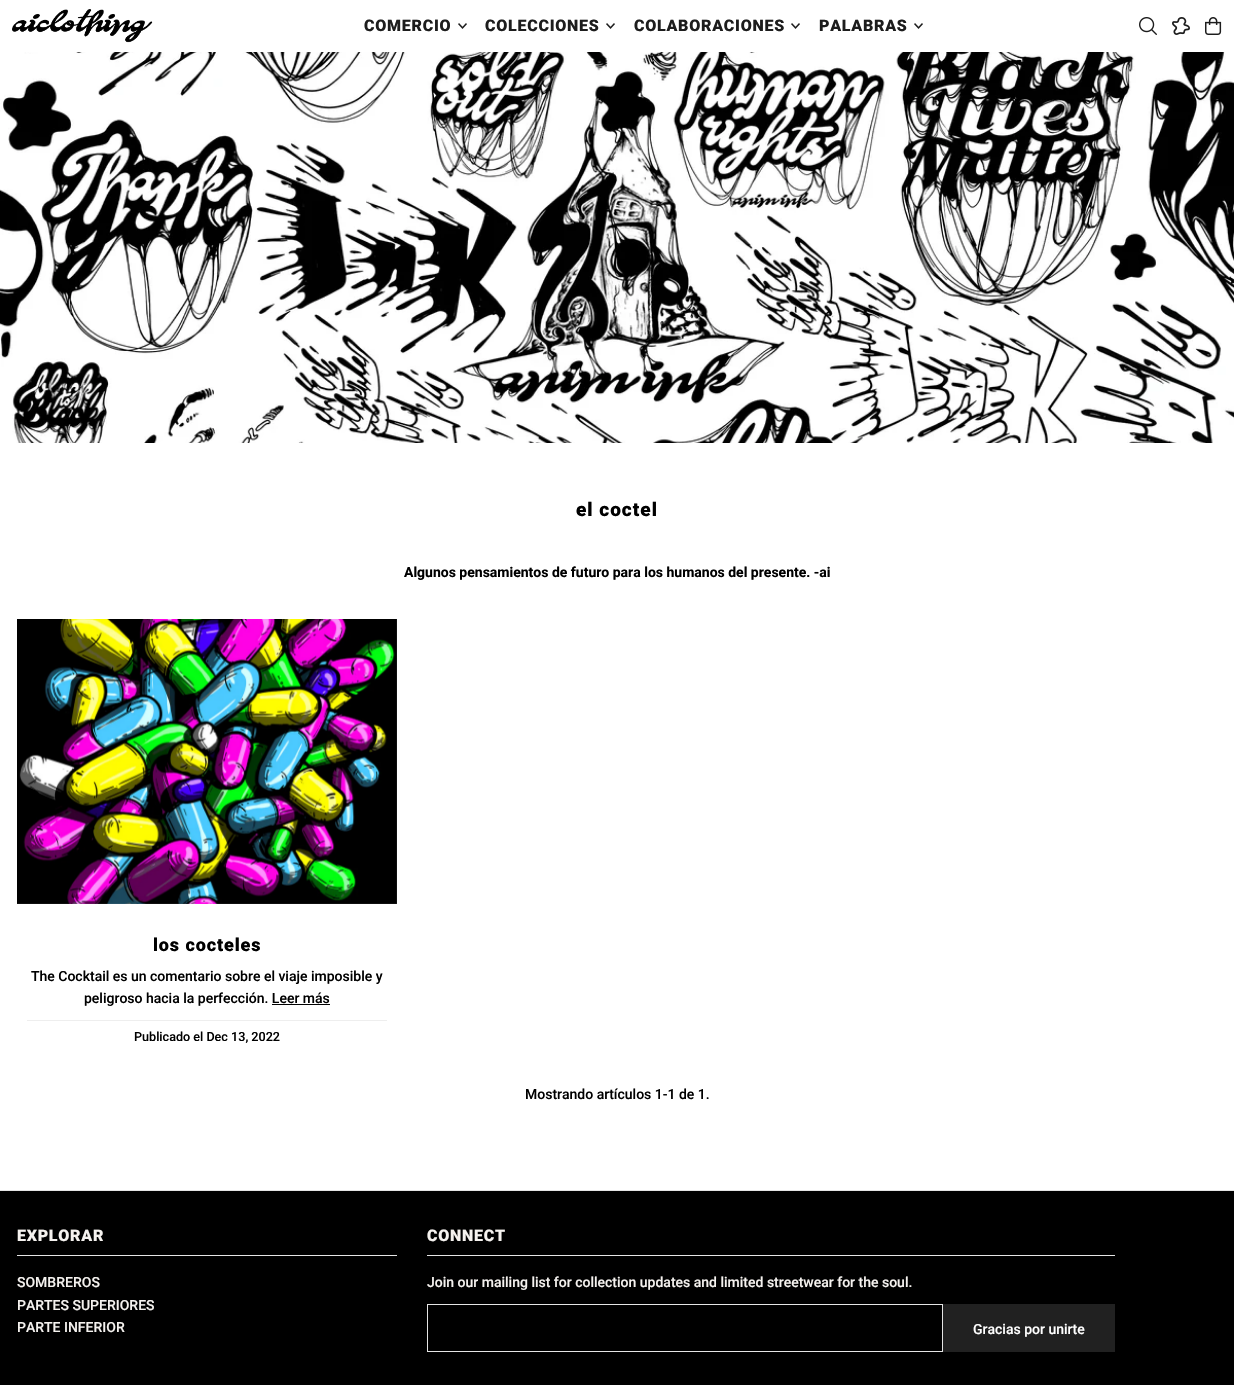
void draw(SkCanvas* c) {
SkPaint p;
p.setAntiAlias(true);
auto F=[&](const char* family, int weight, float size, bool italic = false){SkFontStyle style(weight, SkFontStyle::kNormal_Width,italic ? SkFontStyle::kItalic_Slant : SkFontStyle::kUpright_Slant);SkFont result(fontMgr->matchFamilyStyle(family, style), size);result.setSubpixel(true);return result;};
auto T=[&](const char* s, float x, float y, const SkFont& font){c->drawString(s, x, y, font, p);};
auto L=[&](const char* s, float x, float y, const SkFont& font, const SkPaint& ink, float letter, float word){std::vector<SkGlyphID> glyphs(font.countText(s, strlen(s), SkTextEncoding::kUTF8));std::vector<float> xs(glyphs.size());font.textToGlyphs(s, strlen(s), SkTextEncoding::kUTF8, glyphs);font.getXPos(glyphs, xs, x);float extra = 0;for (size_t i = 0; i < glyphs.size(); i++) {xs[i] += extra;extra += letter + word * (glyphs[i] == font.unicharToGlyph(' '));}c->drawTextBlob(SkTextBlob::MakeFromPosHGlyphs(glyphs, xs, y, font), 0, 0, ink);};
auto R=[&](float x, float y, float w, float h){c->drawRect(SkRect::MakeXYWH(x, y, w, h), p);};
auto I=[&](const char* path, float x, float y, float w, float h){auto image = SkImages::DeferredFromEncodedData(SkData::MakeFromFileName(path));c->drawImageRect(image, SkRect::MakeXYWH(x, y, w, h), SkSamplingOptions());};
c->clear(0xffffffff);
I("1.png",12,9,141,34);
auto f1 = F("Roboto",900,16);
p.setColor(0xff1d1d1d);
L("COMERCIO",364,31,f1,p,.75,0);
I("2.png",458,23,9,6);
L("COLECCIONES",485,31,f1,p,.75,0);
I("2.png",606,23,9,6);
L("COLABORACIONES",634,31,f1,p,.75,0);
I("2.png",791,23,9,6);
L("PALABRAS",819,31,f1,p,.75,0);
I("2.png",914,23,9,6);
I("3.png",1139,17,18,18);
I("4.png",1172,17,18,18);
I("5.png",1205,17,17,18);
I("6.png",0,52,1234,391);
auto f2 = F("Roboto",900,19);
p.setColor(0xff000000);
L("el coctel",576,516,f2,p,1,0);
auto f3 = F("Roboto",700,14);
T("Algunos pensamientos de futuro para los humanos del presente. -ai",404,577,f3);
I("7.png",17,619,380,285);
auto f4 = F("Roboto",900,18);
L("los cocteles",153,951,f4,p,.9,0);
auto f5 = F("Roboto",500,14);
T("The Cocktail es un comentario sobre el viaje imposible y",31,981,f5);
T("peligroso hacia la perfección. Leer más",84,1003,f5);
R(272,1004,58,1);
p.setColor(0xffeeeeee);
R(27,1020,360,1);
auto f6 = F("Roboto",500,12.6);
p.setColor(0xff000000);
T("Publicado el Dec 13, 2022",134,1041,f6);
T("Mostrando artículos 1-1 de 1.",525,1099,f5);
R(0,1191,1234,194);
p.setColor(0xffe5e5e5);
R(0,1190,1234,1);
R(17,1255,380,1);
p.setColor(0xfff5f2ef);
L("EXPLORAR",17,1241,f1,p,.75,0);
T("SOMBREROS",17,1287,f5);
T("PARTES SUPERIORES",17,1310,f5);
T("PARTE INFERIOR",17,1332,f5);
p.setColor(0xffe5e5e5);
R(427,1255,688,1);
p.setColor(0xfff5f2ef);
L("CONNECT",427,1241,f1,p,.75,0);
T("Join our mailing list for collection updates and limited streetwear for the soul.",427,1287,f5);
p.setStroke(true);
p.setStrokeWidth(1);
p.setColor(0xffe5e5e5);
c->drawRect(SkRect::MakeXYWH(427.5,1304.5,515,47),p);
p.setStroke(false);
p.setColor(0xff212121);
R(943,1304,172,48);
p.setColor(0xffffffff);
T("Gracias por unirte",973,1334,f5);
}
